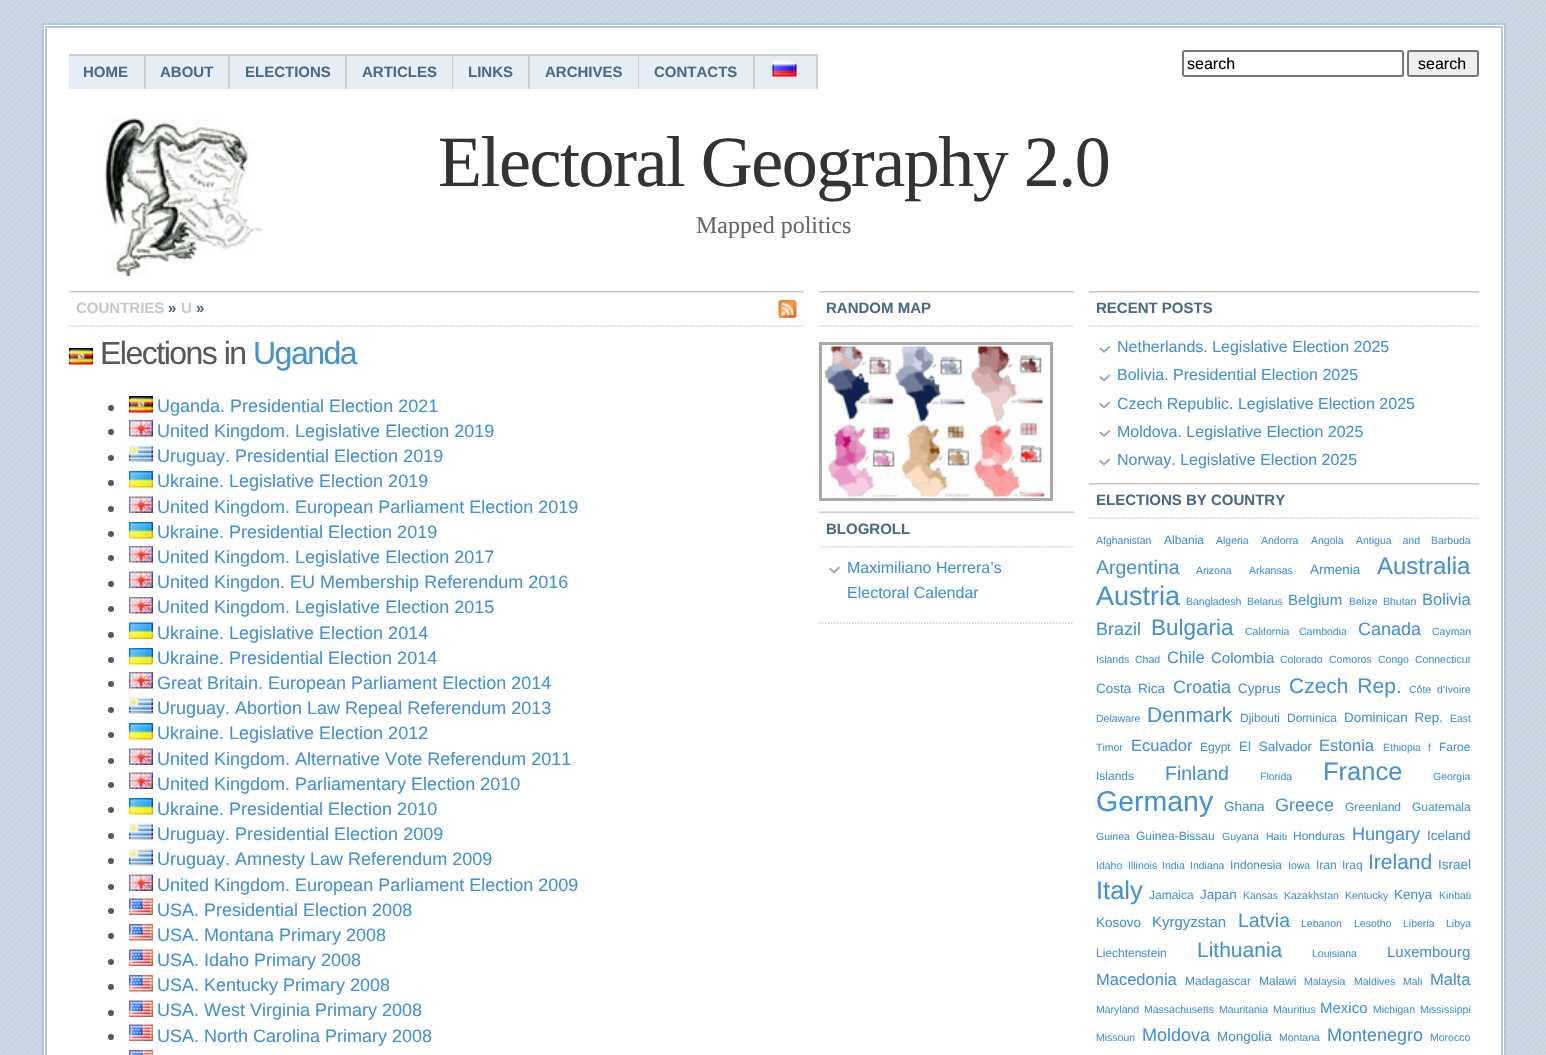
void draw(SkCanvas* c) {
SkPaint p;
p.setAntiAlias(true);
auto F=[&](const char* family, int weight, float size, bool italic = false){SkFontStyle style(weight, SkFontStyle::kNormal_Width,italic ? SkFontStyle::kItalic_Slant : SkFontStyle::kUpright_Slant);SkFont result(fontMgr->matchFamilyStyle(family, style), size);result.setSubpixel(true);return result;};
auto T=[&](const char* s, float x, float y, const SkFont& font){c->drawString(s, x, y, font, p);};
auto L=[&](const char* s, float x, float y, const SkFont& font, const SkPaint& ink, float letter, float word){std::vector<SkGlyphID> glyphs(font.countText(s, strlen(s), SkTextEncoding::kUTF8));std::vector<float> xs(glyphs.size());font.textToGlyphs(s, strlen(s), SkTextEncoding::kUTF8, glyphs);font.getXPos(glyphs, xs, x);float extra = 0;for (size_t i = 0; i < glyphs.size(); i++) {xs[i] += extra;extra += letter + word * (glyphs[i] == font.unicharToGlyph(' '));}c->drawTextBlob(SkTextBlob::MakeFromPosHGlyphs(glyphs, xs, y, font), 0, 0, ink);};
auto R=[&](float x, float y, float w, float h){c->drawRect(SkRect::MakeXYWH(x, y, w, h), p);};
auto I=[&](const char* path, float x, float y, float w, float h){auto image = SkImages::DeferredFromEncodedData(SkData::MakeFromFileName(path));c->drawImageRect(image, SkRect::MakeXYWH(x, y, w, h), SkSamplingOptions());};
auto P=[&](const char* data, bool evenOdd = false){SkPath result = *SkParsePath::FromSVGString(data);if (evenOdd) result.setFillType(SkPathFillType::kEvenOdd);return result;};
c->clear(0xffcbdae8);
I("1.png",0,0,1546,1055);
p.setColor(0xffffffff);
c->drawRect(SkRect::MakeXYWH(43,24,1462,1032),p);
p.setStroke(true);
p.setStrokeWidth(2);
p.setColor(0xffb5c8da);
c->drawRect(SkRect::MakeXYWH(43,24,1462,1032),p);
c->drawRect(SkRect::MakeXYWH(46,27,1456,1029),p);
p.setColor(0xff767676);
c->drawRoundRect(SkRect::MakeXYWH(1183,51,220,25),2,2,p);
auto f1 = F("Liberation Sans",400,16);
p.setStroke(false);
p.setColor(0xff000000);
T("search",1187,69,f1);
p.setColor(0xffefefef);
c->drawRoundRect(SkRect::MakeXYWH(1408,51,70,25),2,2,p);
p.setStroke(true);
p.setColor(0xff767676);
c->drawRoundRect(SkRect::MakeXYWH(1408,51,70,25),2,2,p);
p.setStroke(false);
p.setColor(0xff000000);
T("search",1418,69,f1);
p.setColor(0xffe6edf4);
R(69,56,75,33);
p.setColor(0xffcccccc);
R(69,54,749,2);
R(144,54,2,35);
auto f2 = F("Liberation Sans",700,15);
p.setColor(0xff4c6a85);
T("HOME",83,77,f2);
p.setColor(0xffe6edf4);
R(146,56,82,33);
p.setColor(0xffcccccc);
R(228,54,2,35);
p.setColor(0xff4c6a85);
T("ABOUT",160,77,f2);
p.setColor(0xffe6edf4);
R(230,56,115,33);
p.setColor(0xffcccccc);
R(345,54,2,35);
p.setColor(0xff4c6a85);
T("ELECTIONS",245,77,f2);
p.setColor(0xffe6edf4);
R(347,56,105,33);
p.setColor(0xffcccccc);
R(452,54,1,35);
p.setColor(0xff4c6a85);
T("ARTICLES",362,77,f2);
p.setColor(0xffe6edf4);
R(453,56,75,33);
p.setColor(0xffcccccc);
R(528,54,2,35);
p.setColor(0xff4c6a85);
T("LINKS",468,77,f2);
p.setColor(0xffe6edf4);
R(530,56,108,33);
p.setColor(0xffcccccc);
R(638,54,1,35);
p.setColor(0xff4c6a85);
T("ARCHIVES",545,77,f2);
p.setColor(0xffe6edf4);
R(639,56,114,33);
p.setColor(0xffcccccc);
R(753,54,2,35);
p.setColor(0xff4c6a85);
T("CONTACTS",654,77,f2);
p.setColor(0xffe6edf4);
R(755,56,61,33);
p.setColor(0xffcccccc);
R(816,54,2,35);
I("2.png",772,60,25,17);
I("3.png",102,118,162,158);
auto f3 = F("Liberation Serif",400,72);
p.setColor(0xff333333);
L("Electoral Geography 2.0",438,186,f3,p,-1.5,0);
auto f4 = F("Liberation Serif",400,24);
p.setColor(0xff666666);
T("Mapped politics",696,233,f4);
I("4.png",69,291,735,36);
p.setColor(0xffc9c9c9);
T("COUNTRIES",76,313,f2);
p.setColor(0xff4c6a85);
T("»",168,313,f2);
p.setColor(0xffc9c9c9);
T("U",181,313,f2);
p.setColor(0xff4c6a85);
T("»",196,313,f2);
I("5.png",778,300,19,18);
I("6.png",69,348,24,17);
auto f5 = F("Liberation Sans",400,32);
p.setColor(0xff595858);
L("Elections in",100,364,f5,p,-1.5,0);
p.setColor(0xff4591d8);
L("Uganda",253,364,f5,p,-1.5,0);
p.setColor(0xff595858);
c->drawCircle(111,408,3,p);
I("6.png",129,396,24,17);
auto f6 = F("Liberation Sans",400,18);
p.setColor(0xff4591d8);
T("Uganda. Presidential Election 2021",157,412,f6);
p.setColor(0xff595858);
c->drawCircle(111,432,3,p);
I("7.png",129,420,24,17);
p.setColor(0xff4591d8);
T("United Kingdom. Legislative Election 2019",157,437,f6);
p.setColor(0xff595858);
c->drawCircle(111,458,3,p);
I("8.png",129,445,24,17);
p.setColor(0xff4591d8);
T("Uruguay. Presidential Election 2019",157,462,f6);
p.setColor(0xff595858);
c->drawCircle(111,483,3,p);
I("9.png",129,471,24,17);
p.setColor(0xff4591d8);
T("Ukraine. Legislative Election 2019",157,487,f6);
p.setColor(0xff595858);
c->drawCircle(111,509,3,p);
I("10.png",129,496,24,17);
p.setColor(0xff4591d8);
T("United Kingdom. European Parliament Election 2019",157,513,f6);
p.setColor(0xff595858);
c->drawCircle(111,534,3,p);
I("9.png",129,522,24,17);
p.setColor(0xff4591d8);
T("Ukraine. Presidential Election 2019",157,538,f6);
p.setColor(0xff595858);
c->drawCircle(111,558,3,p);
I("7.png",129,546,24,17);
p.setColor(0xff4591d8);
T("United Kingdom. Legislative Election 2017",157,563,f6);
p.setColor(0xff595858);
c->drawCircle(111,584,3,p);
I("10.png",129,571,24,17);
p.setColor(0xff4591d8);
T("United Kingdon. EU Membership Referendum 2016",157,588,f6);
p.setColor(0xff595858);
c->drawCircle(111,609,3,p);
I("7.png",129,597,24,17);
p.setColor(0xff4591d8);
T("United Kingdom. Legislative Election 2015",157,613,f6);
p.setColor(0xff595858);
c->drawCircle(111,635,3,p);
I("11.png",129,622,24,17);
p.setColor(0xff4591d8);
T("Ukraine. Legislative Election 2014",157,639,f6);
p.setColor(0xff595858);
c->drawCircle(111,660,3,p);
I("9.png",129,648,24,17);
p.setColor(0xff4591d8);
T("Ukraine. Presidential Election 2014",157,664,f6);
p.setColor(0xff595858);
c->drawCircle(111,684,3,p);
I("7.png",129,672,24,17);
p.setColor(0xff4591d8);
T("Great Britain. European Parliament Election 2014",157,689,f6);
p.setColor(0xff595858);
c->drawCircle(111,710,3,p);
I("8.png",129,697,24,17);
p.setColor(0xff4591d8);
T("Uruguay. Abortion Law Repeal Referendum 2013",157,714,f6);
p.setColor(0xff595858);
c->drawCircle(111,735,3,p);
I("9.png",129,723,24,17);
p.setColor(0xff4591d8);
T("Ukraine. Legislative Election 2012",157,739,f6);
p.setColor(0xff595858);
c->drawCircle(111,761,3,p);
I("10.png",129,748,24,17);
p.setColor(0xff4591d8);
T("United Kingdom. Alternative Vote Referendum 2011",157,765,f6);
p.setColor(0xff595858);
c->drawCircle(111,785,3,p);
I("10.png",129,772,24,17);
p.setColor(0xff4591d8);
T("United Kingdom. Parliamentary Election 2010",157,790,f6);
p.setColor(0xff595858);
c->drawCircle(111,810,3,p);
I("9.png",129,798,24,17);
p.setColor(0xff4591d8);
T("Ukraine. Presidential Election 2010",157,815,f6);
p.setColor(0xff595858);
c->drawCircle(111,836,3,p);
I("8.png",129,823,24,17);
p.setColor(0xff4591d8);
T("Uruguay. Presidential Election 2009",157,840,f6);
p.setColor(0xff595858);
c->drawCircle(111,861,3,p);
I("12.png",129,849,24,17);
p.setColor(0xff4591d8);
T("Uruguay. Amnesty Law Referendum 2009",157,865,f6);
p.setColor(0xff595858);
c->drawCircle(111,887,3,p);
I("10.png",129,874,24,17);
p.setColor(0xff4591d8);
T("United Kingdom. European Parliament Election 2009",157,891,f6);
p.setColor(0xff595858);
c->drawCircle(111,911,3,p);
I("13.png",129,898,24,17);
p.setColor(0xff4591d8);
T("USA. Presidential Election 2008",157,916,f6);
p.setColor(0xff595858);
c->drawCircle(111,936,3,p);
I("14.png",129,924,24,17);
p.setColor(0xff4591d8);
T("USA. Montana Primary 2008",157,941,f6);
p.setColor(0xff595858);
c->drawCircle(111,962,3,p);
I("13.png",129,949,24,17);
p.setColor(0xff4591d8);
T("USA. Idaho Primary 2008",157,966,f6);
p.setColor(0xff595858);
c->drawCircle(111,987,3,p);
I("14.png",129,975,24,17);
p.setColor(0xff4591d8);
T("USA. Kentucky Primary 2008",157,991,f6);
p.setColor(0xff595858);
c->drawCircle(111,1013,3,p);
I("13.png",129,1000,24,17);
p.setColor(0xff4591d8);
T("USA. West Virginia Primary 2008",157,1016,f6);
p.setColor(0xff595858);
c->drawCircle(111,1037,3,p);
I("13.png",129,1024,24,17);
p.setColor(0xff4591d8);
T("USA. North Carolina Primary 2008",157,1042,f6);
I("15.png",129,1050,24,5);
p.setStroke(true);
p.setStrokeWidth(1.5);
p.setColor(0xffcccccc);
p.setPathEffect(SkDashPathEffect::Make({{1.5f,1.5f}}, 0));
c->drawPath(P("M819 623h255"),p);
p.setPathEffect(nullptr);
I("16.png",819,291,255,36);
p.setStroke(false);
p.setColor(0xff4c6a85);
T("RANDOM MAP",826,313,f2);
p.setStroke(true);
p.setStrokeWidth(3);
p.setColor(0xffa9a9a9);
c->drawRect(SkRect::MakeXYWH(820.5,343.5,231,156),p);
I("17.png",824,346,221,151);
I("18.png",819,511,255,37);
p.setStroke(false);
p.setColor(0xff4c6a85);
T("BLOGROLL",826,534,f2);
I("19.png",829,566,12,8);
p.setColor(0xff4591d8);
T("Maximiliano Herrera’s",847,573,f1);
T("Electoral Calendar",847,598,f1);
I("20.png",1089,291,390,36);
p.setColor(0xff4c6a85);
T("RECENT POSTS",1096,313,f2);
I("21.png",1099,346,12,7);
p.setColor(0xff4591d8);
T("Netherlands. Legislative Election 2025",1117,352,f1);
I("19.png",1099,374,12,8);
T("Bolivia. Presidential Election 2025",1117,380,f1);
I("19.png",1099,401,12,8);
T("Czech Republic. Legislative Election 2025",1117,409,f1);
I("21.png",1099,430,12,7);
T("Moldova. Legislative Election 2025",1117,437,f1);
I("19.png",1099,458,12,8);
T("Norway. Legislative Election 2025",1117,465,f1);
I("20.png",1089,483,390,36);
p.setColor(0xff4c6a85);
T("ELECTIONS BY COUNTRY",1096,505,f2);
auto f7 = F("Liberation Sans",400,10.5);
p.setColor(0xff4591d8);
T("Afghanistan",1096,544,f7);
auto f8 = F("Liberation Sans",400,12);
T("Albania",1164,544,f8);
T("Algeria",1216,544,f7);
T("Andorra",1261,544,f7);
T("Angola",1311,544,f7);
L("Antigua and Barbudа",1356,544,f7,p,0,8);
auto f9 = F("Liberation Sans",400,19.5);
T("Argentina",1096,574,f9);
T("Arizona",1196,574,f7);
T("Arkansas",1249,574,f7);
auto f10 = F("Liberation Sans",400,13.5);
T("Armenia",1310,574,f10);
auto f11 = F("Liberation Sans",400,24);
T("Australia",1377,574,f11);
auto f12 = F("Liberation Sans",400,27);
T("Austria",1096,605,f12);
T("Bangladesh",1186,605,f7);
T("Belarus",1247,605,f7);
auto f13 = F("Liberation Sans",400,15);
T("Belgium",1288,605,f13);
T("Belize",1349,605,f7);
T("Bhutan",1383,605,f7);
auto f14 = F("Liberation Sans",400,16.5);
T("Bolivia",1422,605,f14);
T("Brazil",1096,635,f6);
auto f15 = F("Liberation Sans",400,22.5);
T("Bulgaria",1151,635,f15);
T("California",1245,635,f7);
T("Cambodia",1299,635,f7);
T("Canada",1358,635,f6);
T("Cayman",1432,635,f7);
T("Islands",1096,663,f7);
T("Chad",1135,663,f7);
T("Chile",1167,663,f14);
T("Colombia",1211,663,f13);
T("Colorado",1280,663,f7);
T("Comoros",1329,663,f7);
T("Congo",1378,663,f7);
T("Connecticut",1415,663,f7);
L("Costa Rica",1096,693,f10,p,0,3);
T("Croatia",1173,693,f6);
T("Cyprus",1238,693,f10);
auto f16 = F("Liberation Sans",400,21);
L("Czech Rep.",1289,693,f16,p,0,3);
L("Côte d'Ivoire",1409,693,f7,p,0,3);
T("Delaware",1096,722,f7);
T("Denmark",1147,722,f16);
T("Djibouti",1240,722,f8);
T("Dominica",1287,722,f8);
L("Dominican Rep.",1344,722,f10,p,0,3);
T("East",1450,722,f7);
T("Timor",1096,751,f7);
T("Ecuador",1131,751,f14);
T("Egypt",1200,751,f8);
L("El Salvador",1239,751,f10,p,0,4);
T("Estonia",1319,751,f14);
T("Ethiopia",1383,751,f7);
T("f",1428,751,f7);
T("Faroe",1439,751,f8);
T("Islands",1096,780,f8);
T("Finland",1165,780,f9);
T("Florida",1260,780,f7);
auto f17 = F("Liberation Sans",400,25.5);
T("France",1323,780,f17);
T("Georgia",1433,780,f7);
auto f18 = F("Liberation Sans",400,28.5);
T("Germany",1096,811,f18);
T("Ghana",1224,811,f10);
T("Greece",1275,811,f6);
T("Greenland",1345,811,f8);
T("Guatemala",1412,811,f8);
T("Guinea",1096,840,f7);
T("Guinea-Bissau",1136,840,f8);
T("Guyana",1222,840,f7);
T("Haiti",1266,840,f7);
T("Honduras",1293,840,f8);
T("Hungary",1352,840,f6);
T("Iceland",1427,840,f10);
T("Idaho",1096,869,f7);
T("Illinois",1128,869,f7);
T("India",1162,869,f7);
T("Indiana",1190,869,f7);
T("Indonesia",1230,869,f8);
T("Iowa",1288,869,f7);
T("Iran",1316,869,f8);
T("Iraq",1342,869,f8);
T("Ireland",1368,869,f16);
T("Israel",1438,869,f10);
T("Italy",1096,899,f17);
T("Jamaica",1149,899,f8);
T("Japan",1200,899,f10);
T("Kansas",1243,899,f7);
T("Kazakhstan",1284,899,f7);
T("Kentucky",1345,899,f7);
T("Kenya",1394,899,f10);
T("Kiribati",1439,899,f7);
T("Kosovo",1096,927,f10);
T("Kyrgyzstan",1152,927,f13);
T("Latvia",1238,927,f9);
T("Lebanon",1301,927,f7);
T("Lesotho",1354,927,f7);
T("Liberia",1403,927,f7);
T("Libya",1446,927,f7);
T("Liechtenstein",1096,957,f8);
T("Lithuania",1197,957,f16);
T("Louisiana",1312,957,f7);
T("Luxembourg",1387,957,f13);
T("Macedonia",1096,985,f14);
T("Madagascar",1185,985,f8);
T("Malawi",1259,985,f8);
T("Malaysia",1304,985,f7);
T("Maldives",1354,985,f7);
T("Mali",1403,985,f7);
T("Malta",1430,985,f14);
T("Maryland",1096,1013,f7);
T("Massachusetts",1144,1013,f7);
T("Mauritania",1219,1013,f7);
T("Mauritius",1273,1013,f7);
T("Mexico",1320,1013,f13);
T("Michigan",1373,1013,f7);
T("Mississippi",1420,1013,f7);
T("Missouri",1096,1041,f7);
T("Moldova",1142,1041,f6);
T("Mongolia",1217,1041,f10);
T("Montana",1279,1041,f7);
T("Montenegro",1327,1041,f6);
T("Morocco",1430,1041,f7);
}
